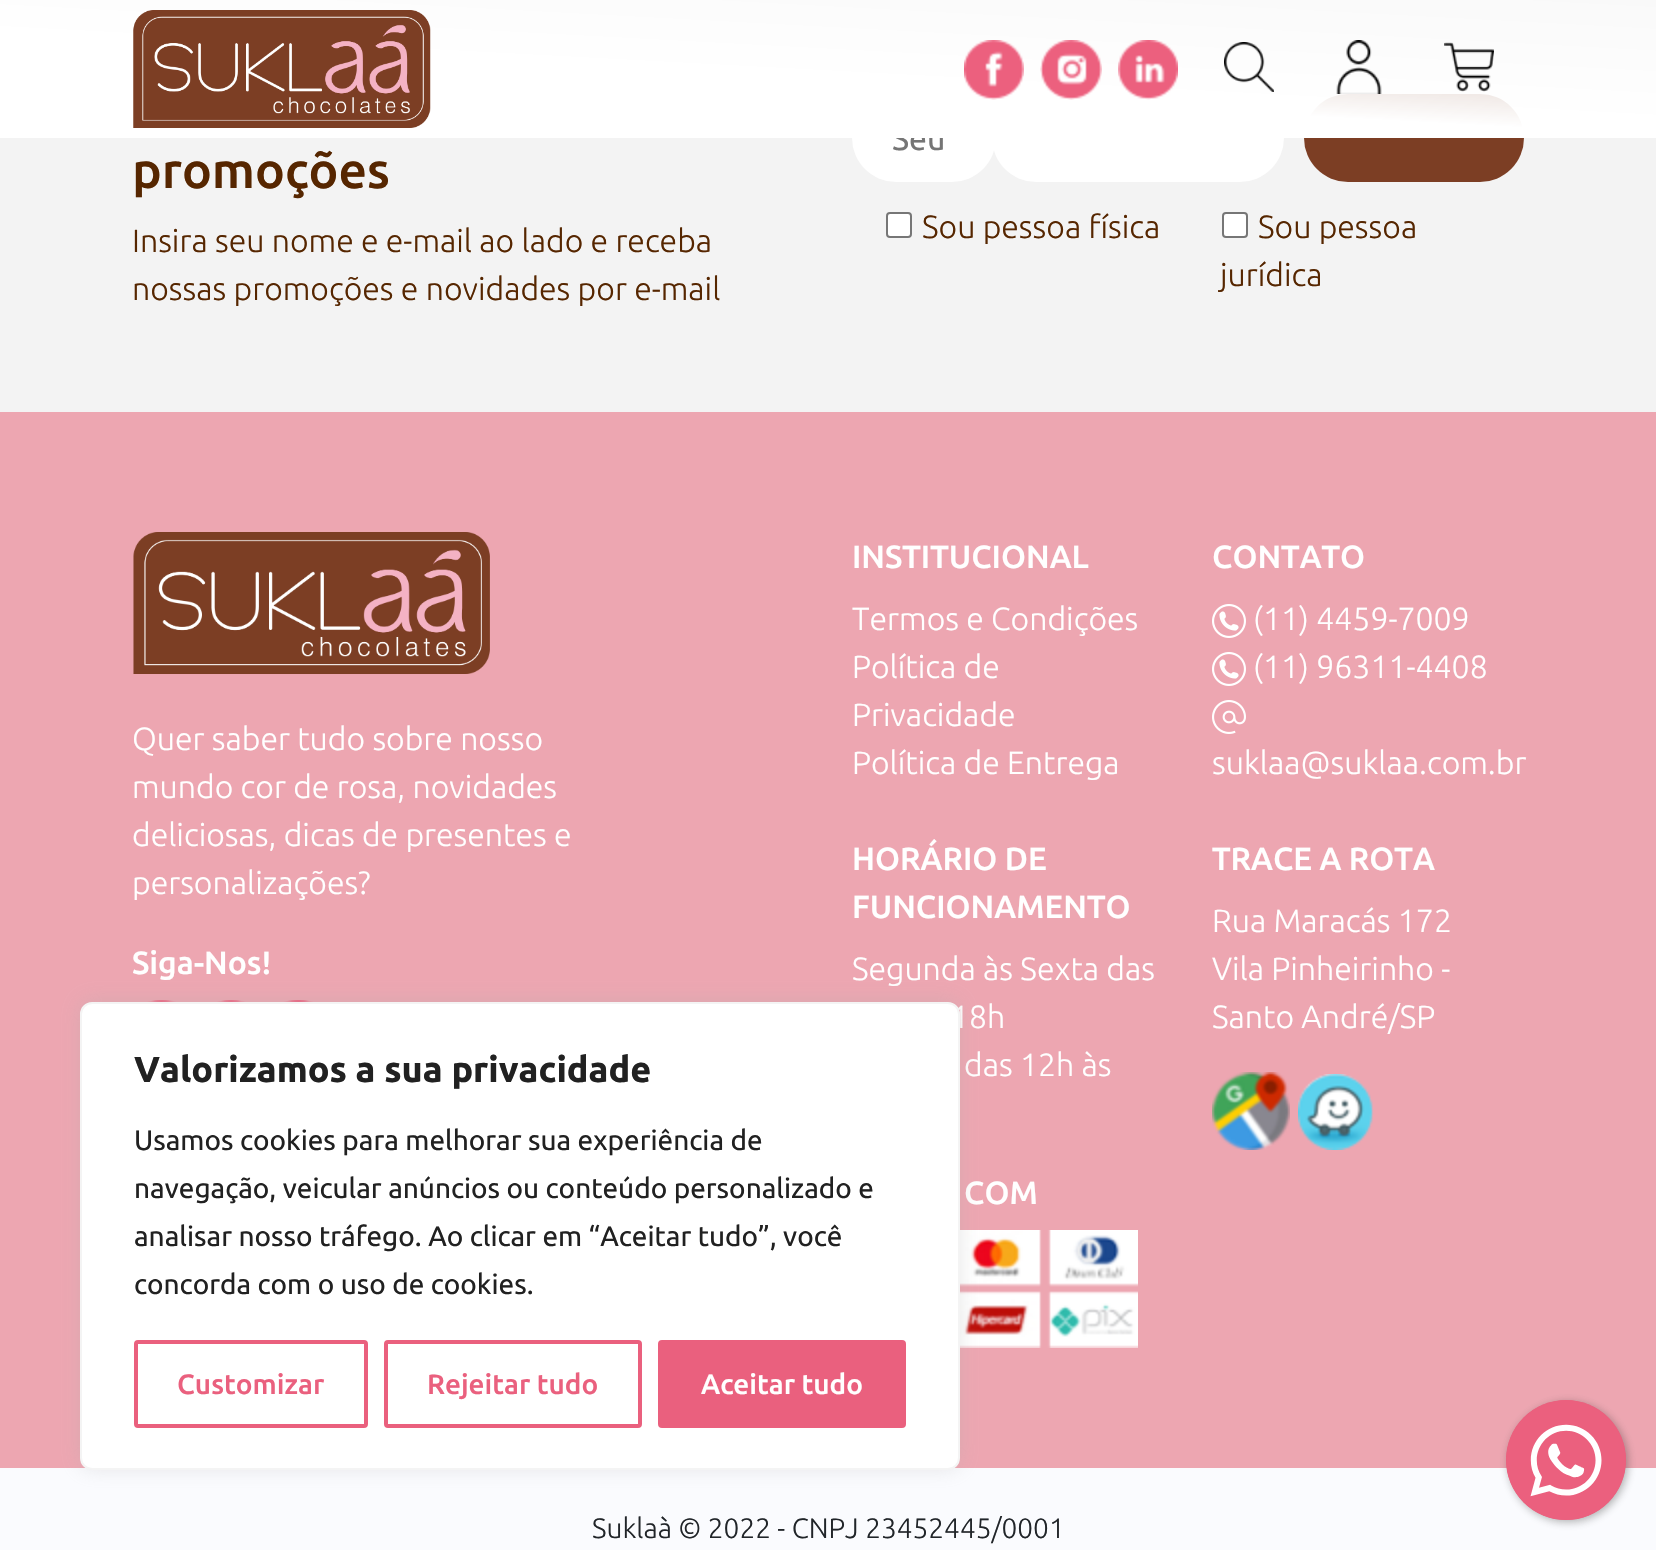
void draw(SkCanvas* c) {
SkPaint p;
p.setAntiAlias(true);
auto F=[&](const char* family, int weight, float size, bool italic = false){SkFontStyle style(weight, SkFontStyle::kNormal_Width,italic ? SkFontStyle::kItalic_Slant : SkFontStyle::kUpright_Slant);SkFont result(fontMgr->matchFamilyStyle(family, style), size);result.setSubpixel(true);return result;};
auto T=[&](const char* s, float x, float y, const SkFont& font){c->drawString(s, x, y, font, p);};
auto R=[&](float x, float y, float w, float h){c->drawRect(SkRect::MakeXYWH(x, y, w, h), p);};
auto Q=[&](float x, float y, float w, float h, float radius){c->drawRoundRect(SkRect::MakeXYWH(x, y, w, h), radius, radius, p);};
auto I=[&](const char* path, float x, float y, float w, float h){auto image = SkImages::DeferredFromEncodedData(SkData::MakeFromFileName(path));c->drawImageRect(image, SkRect::MakeXYWH(x, y, w, h), SkSamplingOptions());};
c->clear(0xfffafbfe);
p.setColor(0xfff3f3f3);
R(0,0,1656,412);
p.setColor(0xffffffff);
Q(852,94,144,88,44);
auto f1 = F("Ubuntu",400,32);
p.setColor(0xff757575);
T("Seu",892,150,f1);
p.setColor(0xffffffff);
Q(992,94,292,88,44);
p.setColor(0xff7c3e24);
Q(1304,94,220,88,44);
{
const SkColor colors[] = {0xffffffff,0x85ffffff};
const float stops[] = {.4,.99};
const SkPoint ends[] = {{822,181}, {834,-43}};
p.setShader(SkGradientShader::MakeLinear(ends, colors, stops, 2, SkTileMode::kClamp));
p.setAlpha(255);
}
R(0,0,1656,138);
I("1.png",133,10,298,118);
I("2.png",964,40,60,60);
I("3.png",1040,40,62,60);
I("4.png",1118,40,60,60);
I("5.png",1224,42,50,50);
I("6.png",1336,40,46,54);
I("7.png",1444,42,50,50);
auto f2 = F("Ubuntu",500,50);
p.setShader(nullptr);
p.setColor(0xff562600);
T("promoções",132,188,f2);
auto f3 = F("Ubuntu",300,32);
T("Insira seu nome e e-mail ao lado e receba",132,252,f3);
T("nossas promoções e novidades por e-mail",132,300,f3);
p.setColor(0xffffffff);
c->drawRoundRect(SkRect::MakeXYWH(887,213,24,24),3,3,p);
p.setStroke(true);
p.setStrokeWidth(2);
p.setColor(0xff767676);
c->drawRoundRect(SkRect::MakeXYWH(887,213,24,24),3,3,p);
p.setStroke(false);
p.setColor(0xff562600);
T("Sou pessoa física",922,238,f3);
p.setColor(0xffffffff);
c->drawRoundRect(SkRect::MakeXYWH(1223,213,24,24),3,3,p);
p.setStroke(true);
p.setColor(0xff767676);
c->drawRoundRect(SkRect::MakeXYWH(1223,213,24,24),3,3,p);
p.setStroke(false);
p.setColor(0xff562600);
T("Sou pessoa",1258,238,f3);
T("jurídica",1220,286,f3);
p.setColor(0xffeda6b1);
R(0,412,1656,1056);
I("8.png",133,532,357,142);
p.setColor(0xffffffff);
T("Quer saber tudo sobre nosso",132,750,f3);
T("mundo cor de rosa, novidades",132,798,f3);
T("deliciosas, dicas de presentes e",132,846,f3);
T("personalizações?",132,894,f3);
auto f4 = F("Ubuntu",500,32);
T("Siga-Nos!",132,974,f4);
I("9.png",147,1000,29,2);
I("10.png",217,1000,29,2);
I("11.png",283,1000,30,2);
T("INSTITUCIONAL",852,568,f4);
T("Termos e Condições",852,630,f3);
T("Política de",852,678,f3);
T("Privacidade",852,726,f3);
T("Política de Entrega",852,774,f3);
T("HORÁRIO DE",852,870,f4);
T("FUNCIONAMENTO",852,918,f4);
T("Segunda às Sexta das",852,980,f3);
T("18h",951,1028,f3);
T("das 12h às",964,1076,f3);
T("COM",964,1204,f4);
I("12.png",960,1230,178,118);
T("CONTATO",1212,568,f4);
I("13.png",1212,604,34,34);
T("(11) 4459-7009",1253,630,f3);
I("13.png",1212,652,34,34);
T("(11) 96311-4408",1253,678,f3);
I("14.png",1212,700,34,34);
T("suklaa@suklaa.com.br",1212,774,f3);
T("TRACE A ROTA",1212,870,f4);
T("Rua Maracás 172",1212,932,f3);
T("Vila Pinheirinho -",1212,980,f3);
T("Santo André/SP",1212,1028,f3);
I("15.png",1212,1072,78,78);
I("16.png",1298,1074,76,76);
p.setColor(0x4dacabab);
p.setMaskFilter(SkMaskFilter::MakeBlur(kNormal_SkBlurStyle, 10));
c->drawRoundRect(SkRect::MakeXYWH(80,1000,880,468),12,12,p);
p.setMaskFilter(nullptr);
p.setColor(0xffffffff);
c->drawRoundRect(SkRect::MakeXYWH(81,1003,878,466),11,11,p);
p.setStroke(true);
p.setColor(0xfff4f4f4);
c->drawRoundRect(SkRect::MakeXYWH(81,1003,878,466),11,11,p);
auto f5 = F("Ubuntu",700,36);
p.setStroke(false);
p.setColor(0xff212121);
T("Valorizamos a sua privacidade",134,1082,f5);
auto f6 = F("Ubuntu",400,28);
T("Usamos cookies para melhorar sua experiência de",134,1150,f6);
T("navegação, veicular anúncios ou conteúdo personalizado e",134,1198,f6);
T("analisar nosso tráfego. Ao clicar em “Aceitar tudo”, você",134,1246,f6);
T("concorda com o uso de cookies.",134,1294,f6);
p.setStroke(true);
p.setStrokeWidth(4);
p.setColor(0xffea607e);
c->drawRoundRect(SkRect::MakeXYWH(136,1342,230,84),2,2,p);
auto f7 = F("Ubuntu",500,28);
p.setStroke(false);
T("Customizar",177,1394,f7);
p.setStroke(true);
c->drawRoundRect(SkRect::MakeXYWH(386,1342,254,84),2,2,p);
p.setStroke(false);
T("Rejeitar tudo",427,1394,f7);
c->drawRoundRect(SkRect::MakeXYWH(660,1342,244,84),2,2,p);
p.setStroke(true);
c->drawRoundRect(SkRect::MakeXYWH(660,1342,244,84),2,2,p);
p.setStroke(false);
p.setColor(0xffffffff);
T("Aceitar tudo",701,1394,f7);
auto f8 = F("Ubuntu",300,28);
p.setColor(0xff212529);
T("Suklaà © 2022 - CNPJ 23452445/0001",592,1538,f8);
p.setColor(0x663c3c3c);
p.setMaskFilter(SkMaskFilter::MakeBlur(kNormal_SkBlurStyle, 4));
c->drawRoundRect(SkRect::MakeXYWH(1508,1402,120,120),60,60,p);
p.setMaskFilter(nullptr);
p.setColor(0xffeb607e);
c->drawCircle(1566,1460,60,p);
I("17.png",1506,1400,120,120);
}
